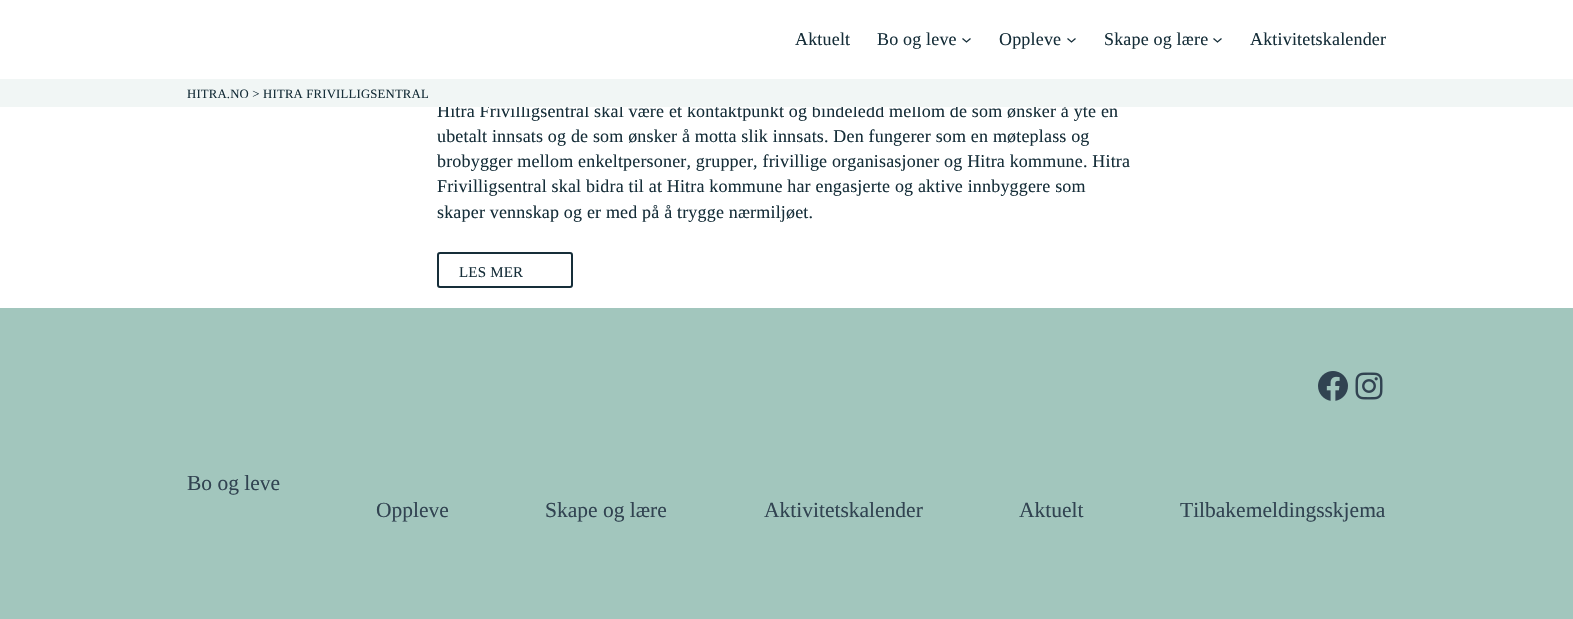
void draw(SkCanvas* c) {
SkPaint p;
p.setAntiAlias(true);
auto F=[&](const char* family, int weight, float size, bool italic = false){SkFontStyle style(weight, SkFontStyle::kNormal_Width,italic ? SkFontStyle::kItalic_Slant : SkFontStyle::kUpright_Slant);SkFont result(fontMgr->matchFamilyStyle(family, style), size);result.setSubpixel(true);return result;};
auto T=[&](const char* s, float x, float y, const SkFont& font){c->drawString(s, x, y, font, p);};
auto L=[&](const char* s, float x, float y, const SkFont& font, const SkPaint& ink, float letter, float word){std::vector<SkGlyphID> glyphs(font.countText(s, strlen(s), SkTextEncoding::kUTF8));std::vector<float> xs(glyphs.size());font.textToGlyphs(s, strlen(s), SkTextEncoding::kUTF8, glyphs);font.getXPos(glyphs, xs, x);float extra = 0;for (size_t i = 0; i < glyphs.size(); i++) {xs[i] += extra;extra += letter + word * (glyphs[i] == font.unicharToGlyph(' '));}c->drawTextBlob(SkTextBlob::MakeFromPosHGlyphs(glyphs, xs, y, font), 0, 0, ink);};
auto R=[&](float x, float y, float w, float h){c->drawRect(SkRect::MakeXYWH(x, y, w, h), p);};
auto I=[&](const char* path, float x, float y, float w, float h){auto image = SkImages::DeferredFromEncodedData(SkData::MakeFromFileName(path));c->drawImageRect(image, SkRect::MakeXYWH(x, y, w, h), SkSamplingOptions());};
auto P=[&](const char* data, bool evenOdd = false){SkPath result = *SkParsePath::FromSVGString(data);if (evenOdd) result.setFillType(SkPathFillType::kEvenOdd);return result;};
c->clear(0xffffffff);
auto f1 = F("Liberation Serif",400,18);
p.setColor(0xff162e39);
L("Aktuelt",795,45,f1,p,.18,0);
L("Bo og leve",877,45,f1,p,.18,0);
p.setStroke(true);
p.setStrokeWidth(1.3);
c->drawPath(P("M962.5 38.5l4 3.5l4-3.5"),p);
p.setStroke(false);
L("Oppleve",999,45,f1,p,.18,0);
p.setStroke(true);
c->drawPath(P("M1067.5 38.5l4 3.5l4-3.5"),p);
p.setStroke(false);
L("Skape og lære",1104,45,f1,p,.18,0);
p.setStroke(true);
c->drawPath(P("M1213.5 38.5l4 3.5l4-3.5"),p);
p.setStroke(false);
L("Aktivitetskalender",1250,45,f1,p,.18,0);
L("Hitra Frivilligsentral skal være et kontaktpunkt og bindeledd mellom de som ønsker å yte en",437,117,f1,p,.18,0);
p.setColor(0xfff1f6f5);
R(0,79,1573,28);
auto f2 = F("Liberation Serif",400,12.75);
p.setColor(0xff162e39);
L("HITRA.NO > HITRA FRIVILLIGSENTRAL",187,98,f2,p,.18,0);
L("ubetalt innsats og de som ønsker å motta slik innsats. Den fungerer som en møteplass og",437,142,f1,p,.18,0);
L("brobygger mellom enkeltpersoner, grupper, frivillige organisasjoner og Hitra kommune. Hitra",437,167,f1,p,.18,0);
L("Frivilligsentral skal bidra til at Hitra kommune har engasjerte og aktive innbyggere som",437,192,f1,p,.18,0);
L("skaper vennskap og er med på å trygge nærmiljøet.",437,218,f1,p,.18,0);
p.setStroke(true);
p.setStrokeWidth(2);
c->drawRoundRect(SkRect::MakeXYWH(438,253,134,34),2,2,p);
auto f3 = F("Liberation Serif",400,15);
p.setStroke(false);
L("LES MER",459,277,f3,p,.18,0);
p.setColor(0xffa2c6bd);
R(0,308,1573,311);
I("1.png",1318,371,30,30);
I("2.png",1355,372,28,28);
auto f4 = F("Liberation Serif",400,21.5);
p.setColor(0xff314351);
T("Bo og leve",187,490,f4);
T("Oppleve",376,517,f4);
T("Skape og lære",545,517,f4);
T("Aktivitetskalender",764,517,f4);
T("Aktuelt",1019,517,f4);
T("Tilbakemeldingsskjema",1180,517,f4);
}
